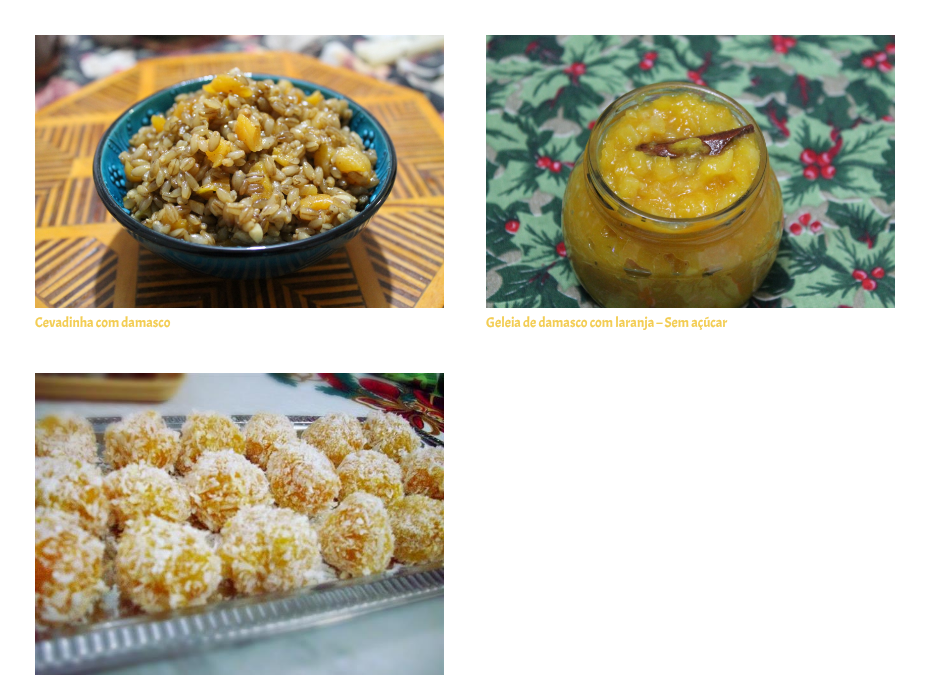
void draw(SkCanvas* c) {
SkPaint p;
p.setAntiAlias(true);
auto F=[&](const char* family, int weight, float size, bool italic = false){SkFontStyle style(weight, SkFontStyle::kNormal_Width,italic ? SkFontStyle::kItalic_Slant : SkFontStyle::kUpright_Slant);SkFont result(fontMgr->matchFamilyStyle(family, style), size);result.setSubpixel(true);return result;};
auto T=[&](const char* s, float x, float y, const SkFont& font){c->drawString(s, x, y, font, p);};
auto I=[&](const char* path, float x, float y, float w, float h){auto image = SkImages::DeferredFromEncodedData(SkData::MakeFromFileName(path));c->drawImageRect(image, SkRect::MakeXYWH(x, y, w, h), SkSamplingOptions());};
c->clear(0xffffffff);
I("1.png",35,35,409,273);
auto f1 = F("Acme",400,14);
p.setColor(0xfff3cd53);
T("Cevadinha com damasco",35,327,f1);
I("2.png",486,35,409,273);
T("Geleia de damasco com laranja – Sem açúcar",486,327,f1);
I("3.png",35,373,409,302);
}
